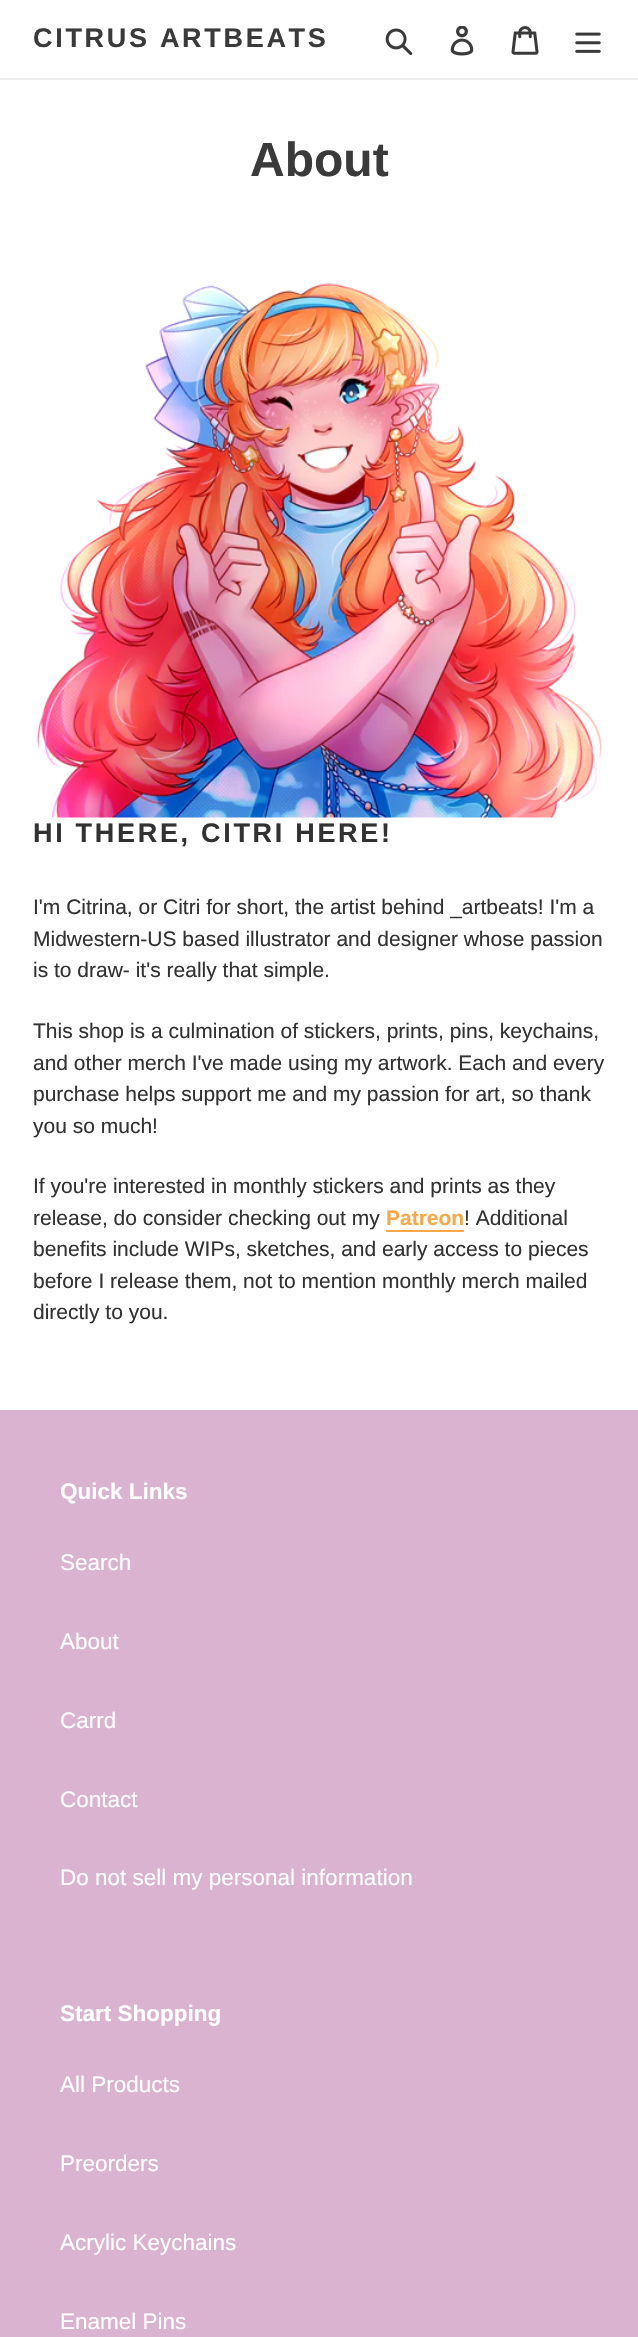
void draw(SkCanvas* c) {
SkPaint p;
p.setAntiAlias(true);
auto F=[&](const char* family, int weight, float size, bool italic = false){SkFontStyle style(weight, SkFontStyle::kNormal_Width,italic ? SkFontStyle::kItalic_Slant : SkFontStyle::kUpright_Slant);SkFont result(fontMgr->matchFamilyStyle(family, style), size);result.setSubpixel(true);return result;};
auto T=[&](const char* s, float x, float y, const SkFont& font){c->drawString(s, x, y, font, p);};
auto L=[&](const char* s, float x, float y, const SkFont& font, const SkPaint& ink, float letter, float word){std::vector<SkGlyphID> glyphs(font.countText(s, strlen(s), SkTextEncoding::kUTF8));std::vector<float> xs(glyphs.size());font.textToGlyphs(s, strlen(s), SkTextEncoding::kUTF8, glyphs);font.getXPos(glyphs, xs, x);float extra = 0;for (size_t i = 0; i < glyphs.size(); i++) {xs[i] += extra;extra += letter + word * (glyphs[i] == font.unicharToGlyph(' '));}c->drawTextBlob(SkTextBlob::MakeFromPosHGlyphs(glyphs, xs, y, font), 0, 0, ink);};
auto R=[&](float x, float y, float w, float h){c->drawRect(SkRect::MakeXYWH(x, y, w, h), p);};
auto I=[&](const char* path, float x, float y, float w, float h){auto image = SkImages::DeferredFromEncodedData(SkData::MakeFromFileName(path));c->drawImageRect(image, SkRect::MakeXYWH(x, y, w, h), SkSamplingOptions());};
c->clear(0xffffffff);
p.setColor(0xffebebeb);
R(0,78,638,2);
auto f1 = F("Liberation Sans",700,27);
p.setColor(0xff3a3a3a);
L("CITRUS ARTBEATS",33,47,f1,p,2.7,0);
I("1.png",385,28,28,28);
I("2.png",450,26,24,30);
I("3.png",511,26,28,29);
I("4.png",575,32,26,21);
auto f2 = F("Liberation Sans",700,48);
T("About",250,176,f2);
I("5.png",36,283,567,535);
p.setColor(0xff333232);
L("HI THERE, CITRI HERE!",33,842,f1,p,2.7,0);
auto f3 = F("Liberation Sans",400,21);
T("I'm Citrina, or Citri for short, the artist behind _artbeats! I'm a",33,914,f3);
T("Midwestern-US based illustrator and designer whose passion",33,946,f3);
T("is to draw- it's really that simple.",33,977,f3);
T("This shop is a culmination of stickers, prints, pins, keychains,",33,1038,f3);
T("and other merch I've made using my artwork. Each and every",33,1070,f3);
T("purchase helps support me and my passion for art, so thank",33,1101,f3);
T("you so much!",33,1133,f3);
T("If you're interested in monthly stickers and prints as they",33,1193,f3);
T("release, do consider checking out my",33,1225,f3);
auto f4 = F("Liberation Sans",700,21);
p.setColor(0xfff9a847);
T("Patreon",386,1225,f4);
R(386,1230,78,2);
p.setColor(0xff333232);
T("! Additional",464,1225,f3);
T("benefits include WIPs, sketches, and early access to pieces",33,1256,f3);
T("before I release them, not to mention monthly merch mailed",33,1288,f3);
T("directly to you.",33,1319,f3);
p.setColor(0xffdab3d1);
R(0,1410,638,927);
auto f5 = F("Liberation Sans",700,22.5);
p.setColor(0xffffffff);
T("Quick Links",60,1499,f5);
auto f6 = F("Liberation Sans",400,22.5);
T("Search",60,1570,f6);
T("About",60,1649,f6);
T("Carrd",60,1728,f6);
T("Contact",60,1807,f6);
T("Do not sell my personal information",60,1885,f6);
T("Start Shopping",60,2021,f5);
T("All Products",60,2092,f6);
T("Preorders",60,2171,f6);
T("Acrylic Keychains",60,2250,f6);
T("Enamel Pins",60,2329,f6);
}
